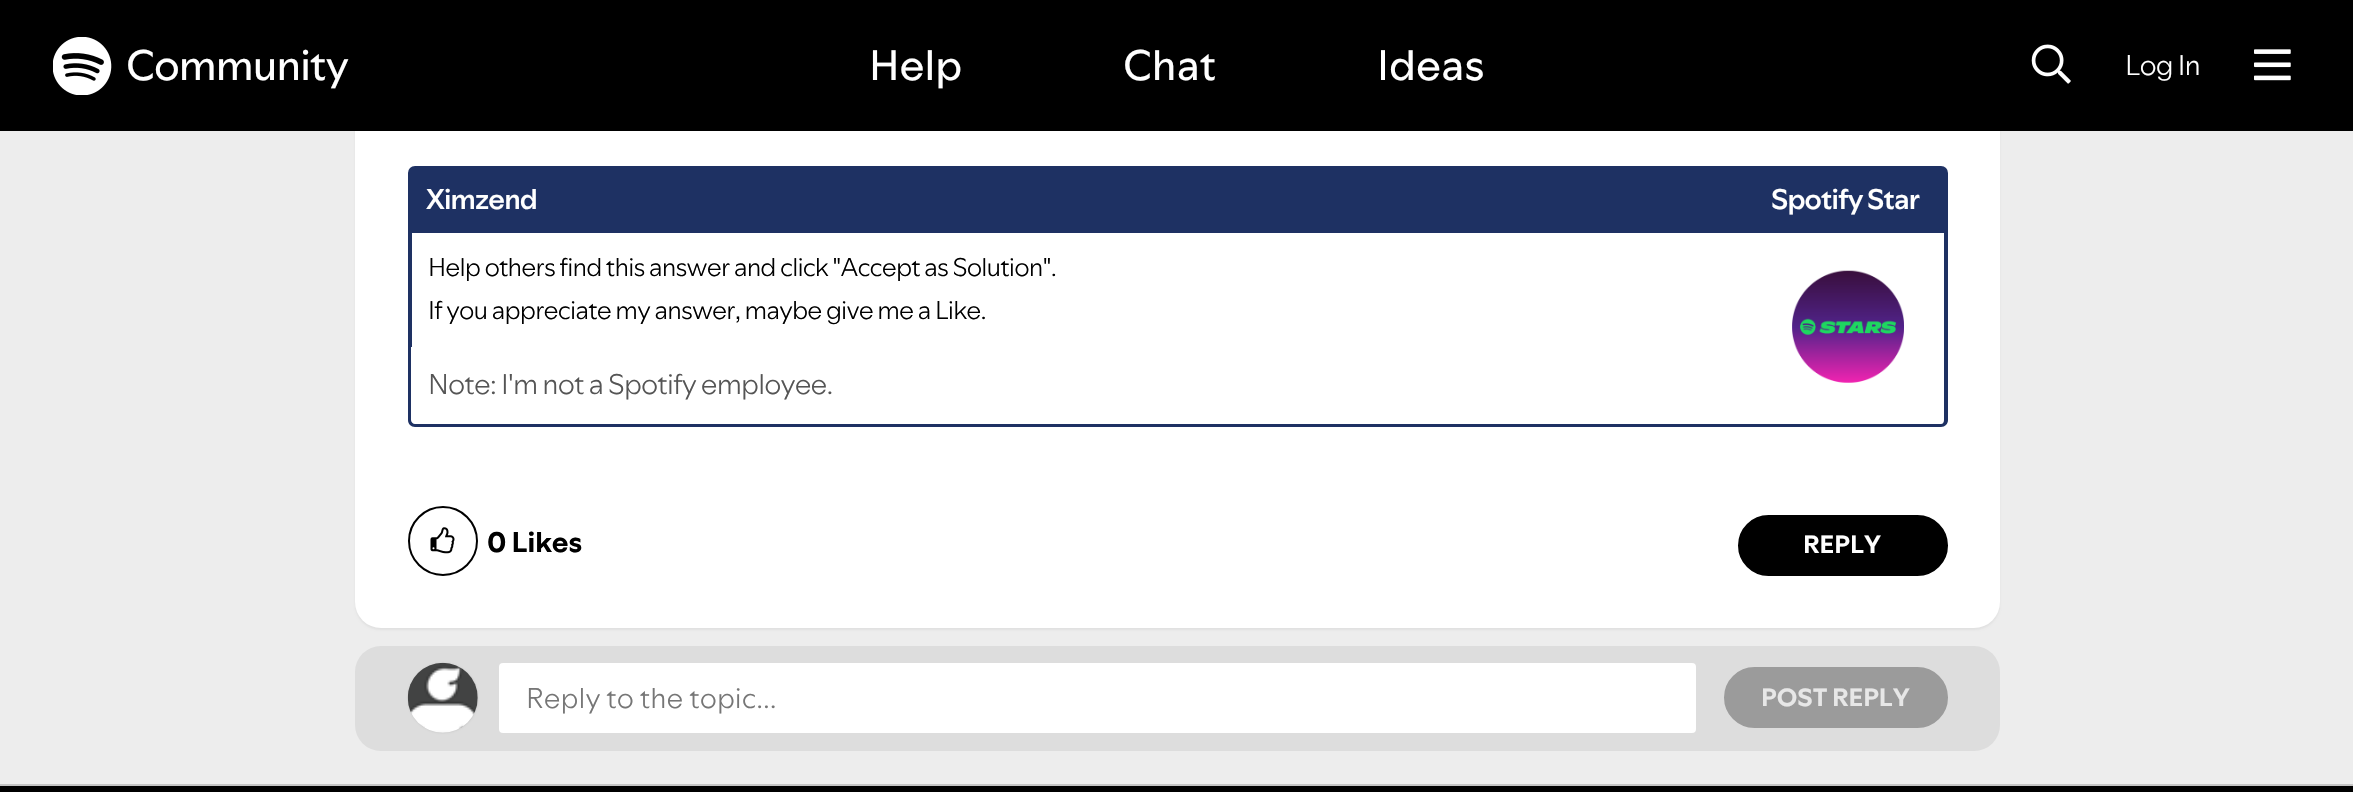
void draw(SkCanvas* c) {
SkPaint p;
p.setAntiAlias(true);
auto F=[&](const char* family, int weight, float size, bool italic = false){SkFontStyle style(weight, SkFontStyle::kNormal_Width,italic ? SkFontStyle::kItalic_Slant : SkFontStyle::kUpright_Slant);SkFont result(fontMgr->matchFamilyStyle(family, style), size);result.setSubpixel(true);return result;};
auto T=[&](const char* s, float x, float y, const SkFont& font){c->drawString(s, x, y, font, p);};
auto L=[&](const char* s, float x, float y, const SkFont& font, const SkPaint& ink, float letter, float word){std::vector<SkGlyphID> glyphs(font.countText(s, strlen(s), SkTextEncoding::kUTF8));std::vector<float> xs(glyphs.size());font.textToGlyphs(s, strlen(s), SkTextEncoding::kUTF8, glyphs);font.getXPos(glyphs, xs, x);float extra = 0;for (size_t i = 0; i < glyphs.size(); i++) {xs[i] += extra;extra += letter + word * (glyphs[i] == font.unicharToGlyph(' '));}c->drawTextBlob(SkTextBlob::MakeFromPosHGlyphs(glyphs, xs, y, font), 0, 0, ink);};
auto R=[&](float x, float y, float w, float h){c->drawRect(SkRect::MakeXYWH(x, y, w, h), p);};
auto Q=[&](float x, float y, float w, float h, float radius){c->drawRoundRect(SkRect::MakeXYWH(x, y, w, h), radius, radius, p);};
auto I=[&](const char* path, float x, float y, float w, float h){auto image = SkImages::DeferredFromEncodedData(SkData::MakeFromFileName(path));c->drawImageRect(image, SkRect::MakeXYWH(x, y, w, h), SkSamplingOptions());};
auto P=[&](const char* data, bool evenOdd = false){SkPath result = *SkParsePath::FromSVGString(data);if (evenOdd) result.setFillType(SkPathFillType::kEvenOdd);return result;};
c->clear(0xffededed);
p.setColor(0x0d000000);
p.setMaskFilter(SkMaskFilter::MakeBlur(kNormal_SkBlurStyle, 1));
c->drawRoundRect(SkRect::MakeXYWH(355,-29,1645,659),26,26,p);
p.setMaskFilter(nullptr);
p.setColor(0xffffffff);
Q(355,-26,1645,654,26);
p.setColor(0xff000000);
R(0,0,2353,131);
I("1.png",53,37,59,58);
auto f1 = F("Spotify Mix",400,42);
p.setColor(0xffffffff);
L("Community",126,80,f1,p,-.88,0);
T("Help",869,80,f1);
T("Chat",1123,80,f1);
T("Ideas",1377,80,f1);
I("2.png",2031,44,40,40);
auto f2 = F("Spotify Mix",300,28);
L("Log In",2125,75,f2,p,-.88,0);
I("3.png",2254,49,37,32);
p.setColor(0xff1e3163);
c->drawPath(P("M415 167h1526c3.5 0 6 2.5 6 6v59h-1538v-59c0-3.5 2.5-6 6-6z"),p);
p.setStroke(true);
p.setStrokeWidth(2);
c->drawPath(P("M415 167h1526c3.5 0 6 2.5 6 6v59h-1538v-59c0-3.5 2.5-6 6-6z"),p);
auto f3 = F("Spotify Mix",500,28);
p.setStroke(false);
p.setColor(0xffffffff);
L("Ximzend",426,209,f3,p,-.88,0);
L("Spotify Star",1771,209,f3,p,-.88,0);
I("4.png",1792,270,112,113);
p.setColor(0xff1e3163);
R(1944,233,4,114);
R(408,233,4,114);
auto f4 = F("Spotify Mix",300,25.2);
p.setColor(0xff000000);
L("Help others find this answer and click \"Accept as Solution\".",428,276,f4,p,-.88,0);
L("If you appreciate my answer, maybe give me a Like.",428,319,f4,p,-.88,0);
p.setColor(0xff1e3163);
c->drawPath(P("M408 346h1540v74c0 4-3 7-7 7h-1526c-4 0-7-3-7-7zm3 0h1533v74c0 2-1 4-3 4h-1526c-2 0-4-2-4-4z",true),p);
p.setColor(0xff555555);
L("Note: I'm not a Spotify employee.",428,394,f2,p,-.88,0);
p.setStroke(true);
p.setColor(0xff000000);
c->drawCircle(443,541,34,p);
I("5.png",430,527,25,27);
auto f5 = F("Spotify Mix",700,28);
p.setStroke(false);
T("0 Likes",487,552,f5);
c->drawRoundRect(SkRect::MakeXYWH(1739,516,208,59),29.5,29.5,p);
p.setStroke(true);
c->drawRoundRect(SkRect::MakeXYWH(1739,516,208,59),29.5,29.5,p);
auto f6 = F("Spotify Mix",700,24.5);
p.setStroke(false);
p.setColor(0xffffffff);
T("REPLY",1803,553,f6);
p.setColor(0xffdddddd);
Q(355,646,1645,105,26);
p.setColor(0xffc4c4c4);
p.setMaskFilter(SkMaskFilter::MakeBlur(kNormal_SkBlurStyle, 1));
c->drawRoundRect(SkRect::MakeXYWH(408,663,70,70),35,35,p);
p.setMaskFilter(nullptr);
I("6.png",407,662,71,71);
p.setColor(0xffffffff);
Q(499,663,1197,70,4);
p.setColor(0xff767676);
T("Reply to the topic...",526,708,f2);
p.setColor(0xff9b9b9b);
c->drawRoundRect(SkRect::MakeXYWH(1725,668,222,59),29.5,29.5,p);
p.setStroke(true);
c->drawRoundRect(SkRect::MakeXYWH(1725,668,222,59),29.5,29.5,p);
p.setStroke(false);
p.setColor(0xffe7e7e7);
T("POST REPLY",1761,706,f6);
p.setColor(0xffc4c4c4);
R(0,784,2353,2);
p.setColor(0xff000000);
R(0,786,2353,6);
}
